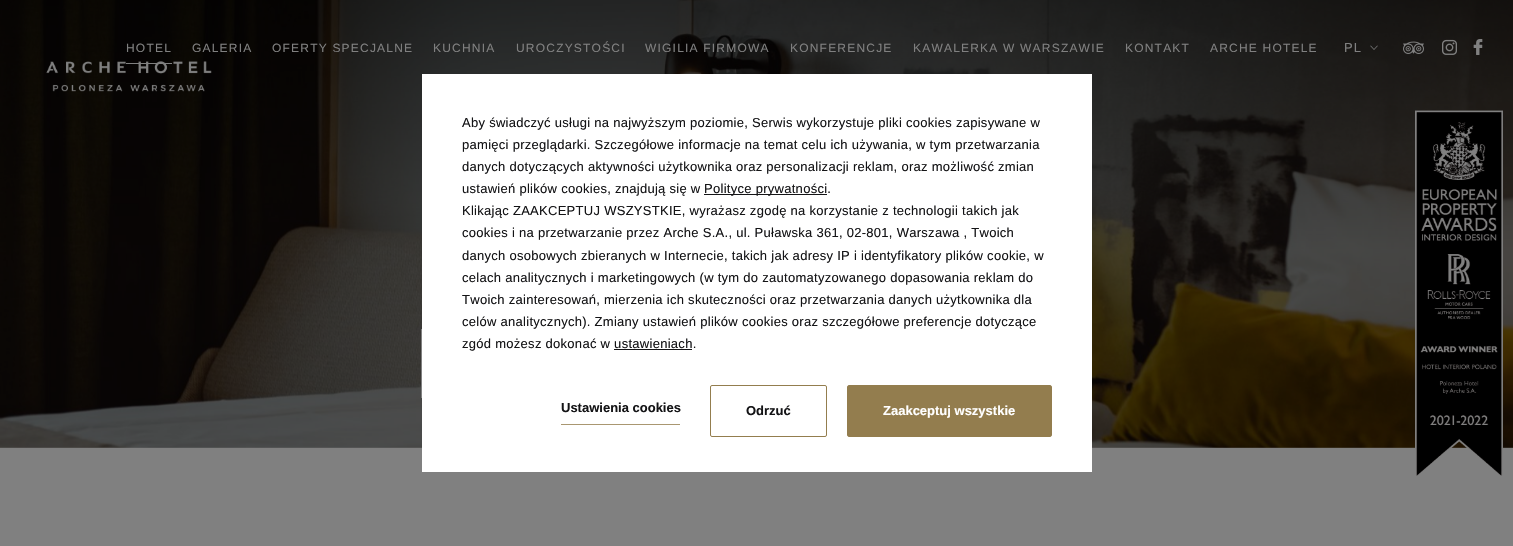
void draw(SkCanvas* c) {
SkPaint p;
p.setAntiAlias(true);
auto F=[&](const char* family, int weight, float size, bool italic = false){SkFontStyle style(weight, SkFontStyle::kNormal_Width,italic ? SkFontStyle::kItalic_Slant : SkFontStyle::kUpright_Slant);SkFont result(fontMgr->matchFamilyStyle(family, style), size);result.setSubpixel(true);return result;};
auto T=[&](const char* s, float x, float y, const SkFont& font){c->drawString(s, x, y, font, p);};
auto L=[&](const char* s, float x, float y, const SkFont& font, const SkPaint& ink, float letter, float word){std::vector<SkGlyphID> glyphs(font.countText(s, strlen(s), SkTextEncoding::kUTF8));std::vector<float> xs(glyphs.size());font.textToGlyphs(s, strlen(s), SkTextEncoding::kUTF8, glyphs);font.getXPos(glyphs, xs, x);float extra = 0;for (size_t i = 0; i < glyphs.size(); i++) {xs[i] += extra;extra += letter + word * (glyphs[i] == font.unicharToGlyph(' '));}c->drawTextBlob(SkTextBlob::MakeFromPosHGlyphs(glyphs, xs, y, font), 0, 0, ink);};
auto R=[&](float x, float y, float w, float h){c->drawRect(SkRect::MakeXYWH(x, y, w, h), p);};
auto I=[&](const char* path, float x, float y, float w, float h){auto image = SkImages::DeferredFromEncodedData(SkData::MakeFromFileName(path));c->drawImageRect(image, SkRect::MakeXYWH(x, y, w, h), SkSamplingOptions());};
c->clear(0xff808080);
I("1.png",0,0,1513,448);
p.setColor(0xff808080);
R(421,329,1,69);
auto f1 = F("Liberation Sans",400,12);
L("HOTEL",126,52,f1,p,1.2,0);
I("6.png",46,61,166,31);
R(126,63,46,1);
L("GALERIA",192,52,f1,p,1.2,0);
L("OFERTY SPECJALNE",272,52,f1,p,1.2,0);
L("KUCHNIA",433,52,f1,p,1.2,0);
L("UROCZYSTOŚCI",516,52,f1,p,1.2,0);
L("WIGILIA FIRMOWA",645,52,f1,p,1.2,0);
L("KONFERENCJE",790,52,f1,p,1.2,0);
L("KAWALERKA W WARSZAWIE",913,52,f1,p,1.2,0);
L("KONTAKT",1125,52,f1,p,1.2,0);
L("ARCHE HOTELE",1210,52,f1,p,1.2,0);
auto f2 = F("Liberation Sans",400,13);
L("PL",1344,52,f2,p,1,0);
I("2.png",1370,45,8,5);
I("3.png",1403,41,21,13);
I("4.png",1442,39,15,16);
I("5.png",1473,39,10,16);
I("7.png",1415,110,88,366);
p.setColor(0xffffffff);
R(422,74,670,398);
p.setColor(0xff141416);
L("Aby świadczyć usługi na najwyższym poziomie, Serwis wykorzystuje pliki cookies zapisywane w",462,127,f2,p,.28,0);
L("pamięci przeglądarki. Szczegółowe informacje na temat celu ich używania, w tym przetwarzania",462,149,f2,p,.28,0);
L("danych dotyczących aktywności użytkownika oraz personalizacji reklam, oraz możliwość zmian",462,171,f2,p,.28,0);
L("ustawień plików cookies, znajdują się w",462,193,f2,p,.28,0);
R(704,194,123,1);
L("Polityce prywatności.",704,193,f2,p,.28,0);
L("Klikając ZAAKCEPTUJ WSZYSTKIE, wyrażasz zgodę na korzystanie z technologii takich jak",462,215,f2,p,.28,0);
L("cookies i na przetwarzanie przez Arche S.A., ul. Puławska 361, 02-801, Warszawa , Twoich",462,237,f2,p,.28,0);
L("danych osobowych zbieranych w Internecie, takich jak adresy IP i identyfikatory plików cookie, w",462,260,f2,p,.28,0);
L("celach analitycznych i marketingowych (w tym do zautomatyzowanego dopasowania reklam do",462,282,f2,p,.28,0);
L("Twoich zainteresowań, mierzenia ich skuteczności oraz przetwarzania danych użytkownika dla",462,304,f2,p,.28,0);
L("celów analitycznych). Zmiany ustawień plików cookies oraz szczegółowe preferencje dotyczące",462,326,f2,p,.28,0);
L("zgód możesz dokonać w ustawieniach.",462,348,f2,p,.28,0);
R(614,349,78,1);
auto f3 = F("Liberation Sans",700,13);
T("Ustawienia cookies",561,412,f3);
p.setColor(0xffa99771);
R(561,424,119,1);
p.setStroke(true);
p.setStrokeWidth(1);
p.setColor(0xff937d4e);
c->drawRoundRect(SkRect::MakeXYWH(710.5,385.5,116,51),1.5,1.5,p);
p.setStroke(false);
p.setColor(0xff141416);
T("Odrzuć",746,415,f3);
p.setStroke(true);
p.setColor(0xff937d4e);
c->drawRoundRect(SkRect::MakeXYWH(847.5,385.5,204,51),1.5,1.5,p);
p.setStroke(false);
R(848,386,203,50);
p.setColor(0xffffffff);
T("Zaakceptuj wszystkie",883,415,f3);
}
